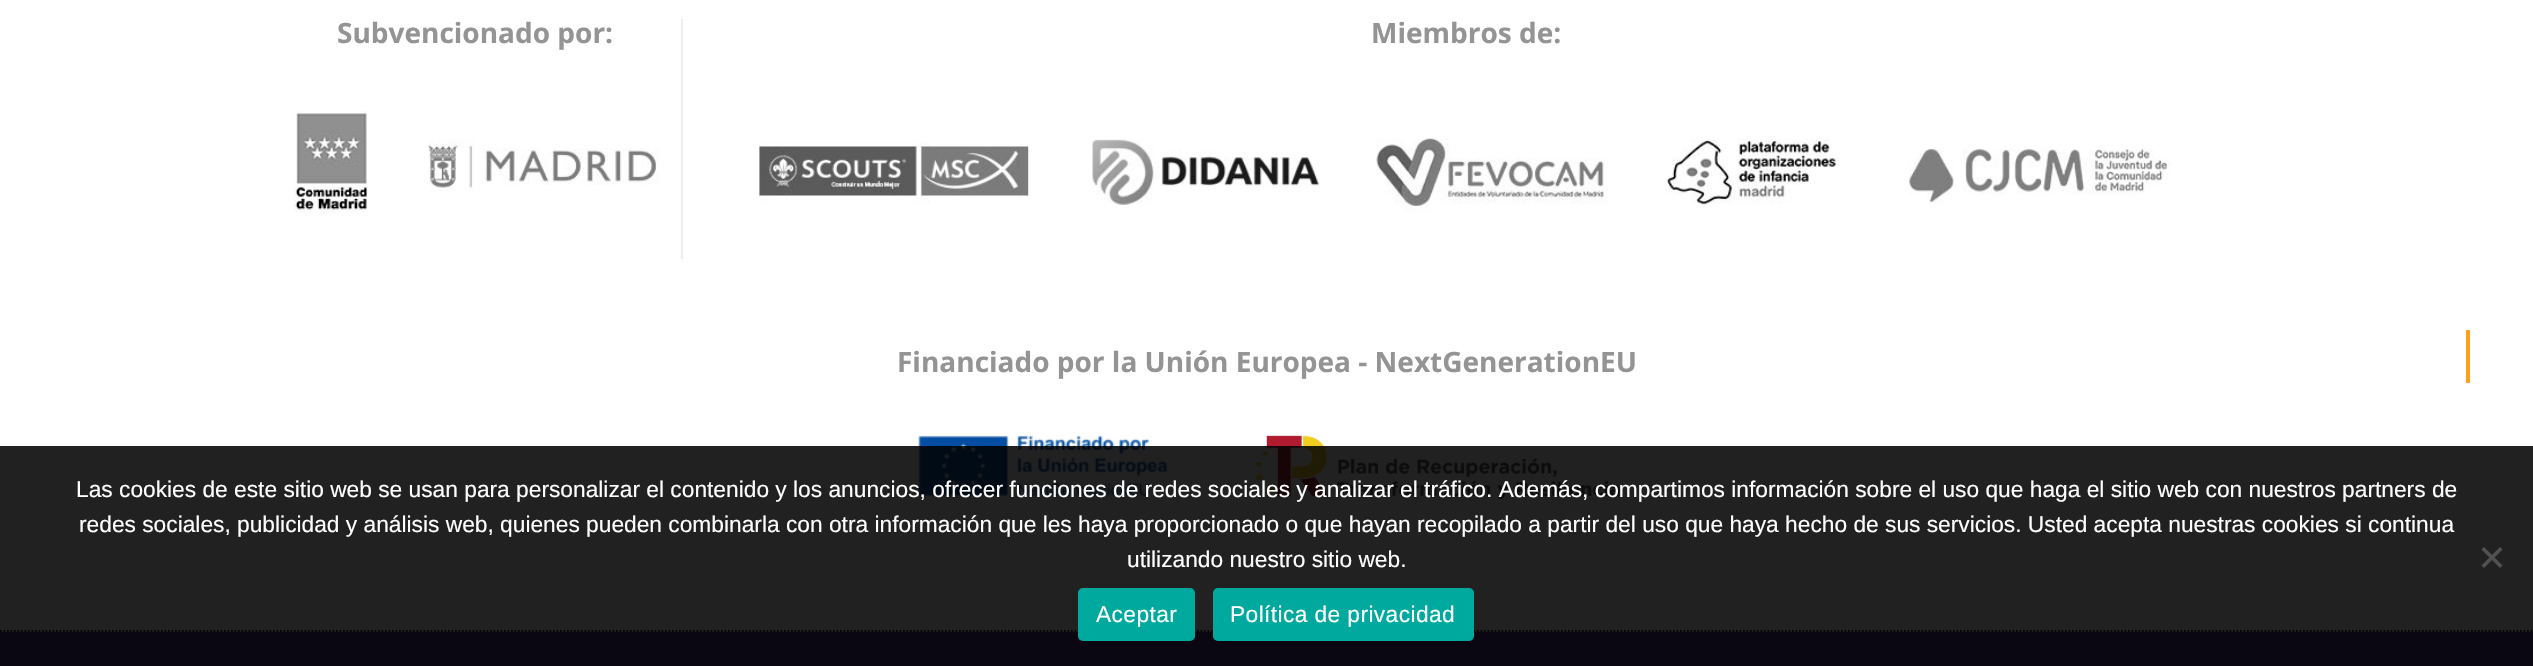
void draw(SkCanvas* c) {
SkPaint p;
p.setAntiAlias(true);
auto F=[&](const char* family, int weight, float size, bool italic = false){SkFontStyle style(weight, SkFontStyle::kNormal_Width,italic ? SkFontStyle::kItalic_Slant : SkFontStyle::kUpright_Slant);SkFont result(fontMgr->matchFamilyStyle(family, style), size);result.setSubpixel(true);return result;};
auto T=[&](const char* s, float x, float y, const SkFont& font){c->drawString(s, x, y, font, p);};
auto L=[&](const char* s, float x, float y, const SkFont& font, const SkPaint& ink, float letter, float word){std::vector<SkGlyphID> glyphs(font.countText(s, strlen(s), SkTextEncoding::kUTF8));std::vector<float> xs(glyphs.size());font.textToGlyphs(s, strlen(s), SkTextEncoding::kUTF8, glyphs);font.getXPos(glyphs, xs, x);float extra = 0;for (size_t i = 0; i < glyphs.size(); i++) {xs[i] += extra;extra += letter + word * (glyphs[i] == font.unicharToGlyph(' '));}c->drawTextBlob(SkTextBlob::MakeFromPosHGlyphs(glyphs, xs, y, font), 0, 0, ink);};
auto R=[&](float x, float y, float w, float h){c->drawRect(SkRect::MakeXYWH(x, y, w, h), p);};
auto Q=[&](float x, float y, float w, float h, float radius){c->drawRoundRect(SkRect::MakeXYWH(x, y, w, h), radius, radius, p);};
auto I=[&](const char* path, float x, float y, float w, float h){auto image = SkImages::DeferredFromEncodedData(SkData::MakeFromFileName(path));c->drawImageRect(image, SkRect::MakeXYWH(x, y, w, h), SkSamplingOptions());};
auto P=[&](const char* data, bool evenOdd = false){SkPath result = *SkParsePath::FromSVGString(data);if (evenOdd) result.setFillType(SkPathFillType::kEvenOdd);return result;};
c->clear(0xffffffff);
p.setStroke(true);
p.setStrokeWidth(1.8);
p.setColor(0xff232323);
p.setPathEffect(SkDashPathEffect::Make({{1.75f,1.75f}}, 0));
c->drawPath(P("M0 631h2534"),p);
p.setPathEffect(nullptr);
auto f1 = F("Open Sans",700,28);
p.setStroke(false);
p.setColor(0xff949494);
T("Subvencionado por:",337,43,f1);
I("1.png",293,111,75,102);
I("2.png",428,139,231,53);
p.setColor(0xffeeeeee);
R(681,19,2,240);
p.setColor(0xff949494);
T("Miembros de:",1371,43,f1);
I("3.png",758,141,271,62);
I("4.png",1092,139,228,69);
I("5.png",1376,138,232,75);
I("6.png",1665,139,174,67);
I("7.png",1908,149,263,55);
T("Financiado por la Unión Europea - NextGenerationEU",897,372,f1);
I("8.png",918,435,250,62);
I("9.png",1254,435,366,64);
p.setColor(0xff533185);
R(0,632,2533,34);
p.setColor(0xffff9f1a);
R(2466,330,4,53);
p.setColor(0xde000000);
R(0,446,2533,220);
auto f2 = F("Liberation Sans",400,22.75);
p.setColor(0xffffffff);
T("Las cookies de este sitio web se usan para personalizar el contenido y los anuncios, ofrecer funciones de redes sociales y analizar el tráfico. Además, compartimos información sobre el uso que haga el sitio web con nuestros partners de",76,497,f2);
T("redes sociales, publicidad y análisis web, quienes pueden combinarla con otra información que les haya proporcionado o que hayan recopilado a partir del uso que haya hecho de sus servicios. Usted acepta nuestras cookies si continua",79,532,f2);
T("utilizando nuestro sitio web.",1127,567,f2);
p.setColor(0xff515151);
c->drawPath(P("M2500 547l2.5 2.5l-18.5 18.5l-2.5-2.5z"),p);
c->drawPath(P("M2481.5 549.5l2.5-2.5l18.5 18.5l-2.5 2.5z"),p);
p.setColor(0xff00a99d);
Q(1078,588,117,53,5);
p.setColor(0xffffffff);
L("Aceptar",1096,622,f2,p,.4,0);
p.setColor(0xff00a99d);
Q(1213,588,261,53,5);
p.setColor(0xffffffff);
L("Política de privacidad",1230,622,f2,p,.4,0);
}
